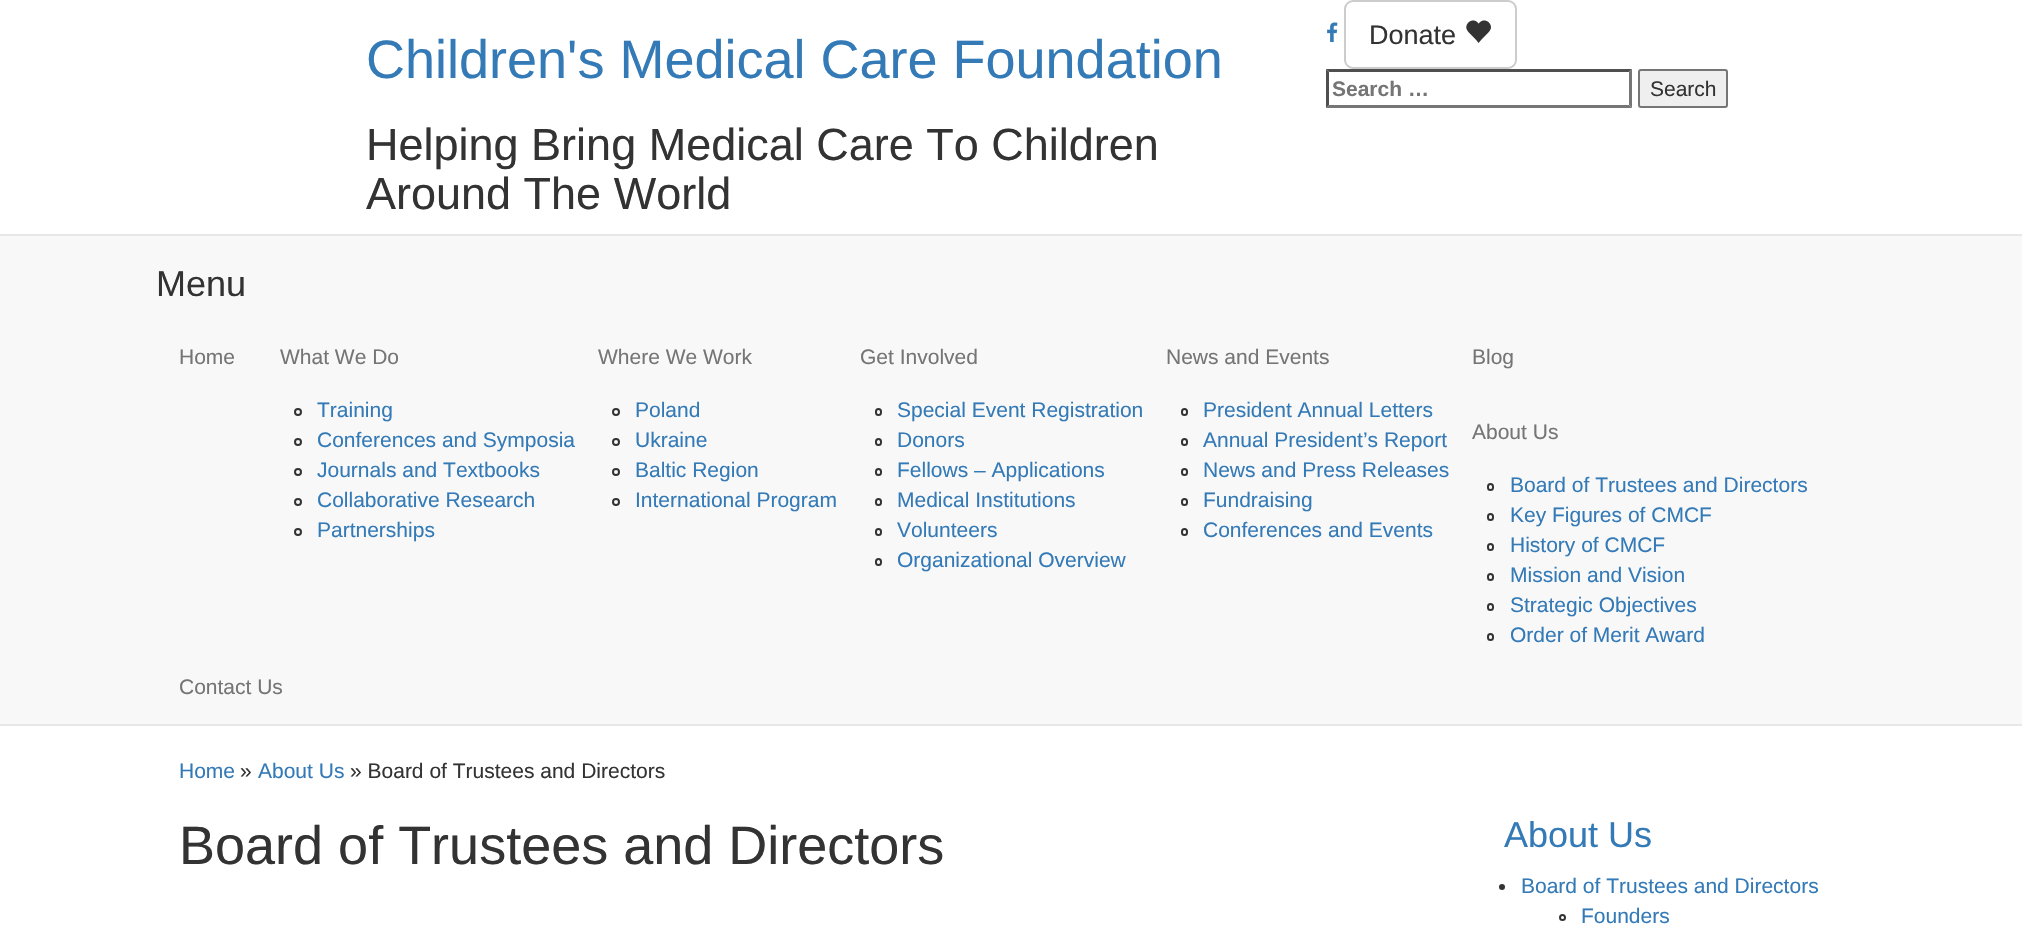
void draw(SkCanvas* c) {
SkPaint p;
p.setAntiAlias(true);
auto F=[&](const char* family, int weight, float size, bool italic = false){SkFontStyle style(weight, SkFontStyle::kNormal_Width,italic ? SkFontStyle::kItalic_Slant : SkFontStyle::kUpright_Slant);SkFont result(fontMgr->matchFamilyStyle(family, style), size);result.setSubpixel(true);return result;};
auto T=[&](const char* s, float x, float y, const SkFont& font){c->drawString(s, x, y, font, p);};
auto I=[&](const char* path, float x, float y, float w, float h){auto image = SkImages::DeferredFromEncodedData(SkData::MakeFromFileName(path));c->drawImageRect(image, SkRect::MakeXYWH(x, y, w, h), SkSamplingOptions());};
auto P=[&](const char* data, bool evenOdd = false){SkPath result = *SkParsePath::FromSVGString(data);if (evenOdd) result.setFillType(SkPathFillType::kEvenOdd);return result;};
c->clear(0xffffffff);
auto f1 = F("Liberation Sans",400,54);
p.setColor(0xff337ab7);
T("Children's Medical Care Foundation",366,78,f1);
auto f2 = F("Liberation Sans",400,45);
p.setColor(0xff333333);
T("Helping Bring Medical Care To Children",366,160,f2);
T("Around The World",366,209,f2);
I("1.png",1327,22,11,20);
p.setStroke(true);
p.setStrokeWidth(2);
p.setColor(0xffcccccc);
c->drawRoundRect(SkRect::MakeXYWH(1345,1,171,67),8,8,p);
auto f3 = F("Liberation Sans",400,27);
p.setStroke(false);
p.setColor(0xff333333);
T("Donate",1369,44,f3);
I("2.png",1466,20,25,23);
p.setColor(0xff4f4f4f);
c->drawPath(P("M1326 69h306l-3 3h-300z"),p);
p.setColor(0xff767676);
c->drawPath(P("M1632 69v39l-3-3v-33z"),p);
c->drawPath(P("M1632 108h-306l3-3h300z"),p);
p.setColor(0xff4f4f4f);
c->drawPath(P("M1326 108v-39l3 3v33z"),p);
auto f4 = F("Liberation Sans",700,21);
p.setColor(0xff757575);
T("Search …",1332,96,f4);
p.setColor(0xffefefef);
c->drawRoundRect(SkRect::MakeXYWH(1639,70,88,37),2,2,p);
p.setStroke(true);
p.setColor(0xff767676);
c->drawRoundRect(SkRect::MakeXYWH(1639,70,88,37),2,2,p);
auto f5 = F("Liberation Sans",400,21);
p.setStroke(false);
p.setColor(0xff333333);
T("Search",1650,96,f5);
p.setColor(0xfff8f8f8);
c->drawRect(SkRect::MakeXYWH(-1,235,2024,490),p);
p.setStroke(true);
p.setColor(0xffe7e7e7);
c->drawRect(SkRect::MakeXYWH(-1,235,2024,490),p);
auto f6 = F("Liberation Sans",400,36);
p.setStroke(false);
p.setColor(0xff333333);
T("Menu",156,296,f6);
p.setColor(0xff757575);
T("Home",179,364,f5);
T("What We Do",280,364,f5);
p.setStroke(true);
p.setColor(0xff333333);
c->drawCircle(298,412,3,p);
p.setStroke(false);
p.setColor(0xff337ab7);
T("Training",317,417,f5);
p.setStroke(true);
p.setColor(0xff333333);
c->drawCircle(298,442,3,p);
p.setStroke(false);
p.setColor(0xff337ab7);
T("Conferences and Symposia",317,447,f5);
p.setStroke(true);
p.setColor(0xff333333);
c->drawCircle(298,472,3,p);
p.setStroke(false);
p.setColor(0xff337ab7);
T("Journals and Textbooks",317,477,f5);
p.setStroke(true);
p.setColor(0xff333333);
c->drawCircle(298,502,3,p);
p.setStroke(false);
p.setColor(0xff337ab7);
T("Collaborative Research",317,507,f5);
p.setStroke(true);
p.setColor(0xff333333);
c->drawCircle(298,532,3,p);
p.setStroke(false);
p.setColor(0xff337ab7);
T("Partnerships",317,537,f5);
p.setColor(0xff757575);
T("Where We Work",598,364,f5);
p.setStroke(true);
p.setColor(0xff333333);
c->drawCircle(616,412,3,p);
p.setStroke(false);
p.setColor(0xff337ab7);
T("Poland",635,417,f5);
p.setStroke(true);
p.setColor(0xff333333);
c->drawCircle(616,442,3,p);
p.setStroke(false);
p.setColor(0xff337ab7);
T("Ukraine",635,447,f5);
p.setStroke(true);
p.setColor(0xff333333);
c->drawCircle(616,472,3,p);
p.setStroke(false);
p.setColor(0xff337ab7);
T("Baltic Region",635,477,f5);
p.setStroke(true);
p.setColor(0xff333333);
c->drawCircle(616,502,3,p);
p.setStroke(false);
p.setColor(0xff337ab7);
T("International Program",635,507,f5);
p.setColor(0xff757575);
T("Get Involved",860,364,f5);
p.setStroke(true);
p.setColor(0xff333333);
c->drawRoundRect(SkRect::MakeXYWH(876,409,5,6),2.5,2.5,p);
p.setStroke(false);
p.setColor(0xff337ab7);
T("Special Event Registration",897,417,f5);
p.setStroke(true);
p.setColor(0xff333333);
c->drawRoundRect(SkRect::MakeXYWH(876,439,5,6),2.5,2.5,p);
p.setStroke(false);
p.setColor(0xff337ab7);
T("Donors",897,447,f5);
p.setStroke(true);
p.setColor(0xff333333);
c->drawRoundRect(SkRect::MakeXYWH(876,469,5,6),2.5,2.5,p);
p.setStroke(false);
p.setColor(0xff337ab7);
T("Fellows – Applications",897,477,f5);
p.setStroke(true);
p.setColor(0xff333333);
c->drawRoundRect(SkRect::MakeXYWH(876,499,5,6),2.5,2.5,p);
p.setStroke(false);
p.setColor(0xff337ab7);
T("Medical Institutions",897,507,f5);
p.setStroke(true);
p.setColor(0xff333333);
c->drawRoundRect(SkRect::MakeXYWH(876,529,5,6),2.5,2.5,p);
p.setStroke(false);
p.setColor(0xff337ab7);
T("Volunteers",897,537,f5);
p.setStroke(true);
p.setColor(0xff333333);
c->drawRoundRect(SkRect::MakeXYWH(876,559,5,6),2.5,2.5,p);
p.setStroke(false);
p.setColor(0xff337ab7);
T("Organizational Overview",897,567,f5);
p.setColor(0xff757575);
T("News and Events",1166,364,f5);
p.setStroke(true);
p.setColor(0xff333333);
c->drawRoundRect(SkRect::MakeXYWH(1182,409,5,6),2.5,2.5,p);
p.setStroke(false);
p.setColor(0xff337ab7);
T("President Annual Letters",1203,417,f5);
p.setStroke(true);
p.setColor(0xff333333);
c->drawRoundRect(SkRect::MakeXYWH(1182,439,5,6),2.5,2.5,p);
p.setStroke(false);
p.setColor(0xff337ab7);
T("Annual President’s Report",1203,447,f5);
p.setStroke(true);
p.setColor(0xff333333);
c->drawRoundRect(SkRect::MakeXYWH(1182,469,5,6),2.5,2.5,p);
p.setStroke(false);
p.setColor(0xff337ab7);
T("News and Press Releases",1203,477,f5);
p.setStroke(true);
p.setColor(0xff333333);
c->drawRoundRect(SkRect::MakeXYWH(1182,499,5,6),2.5,2.5,p);
p.setStroke(false);
p.setColor(0xff337ab7);
T("Fundraising",1203,507,f5);
p.setStroke(true);
p.setColor(0xff333333);
c->drawRoundRect(SkRect::MakeXYWH(1182,529,5,6),2.5,2.5,p);
p.setStroke(false);
p.setColor(0xff337ab7);
T("Conferences and Events",1203,537,f5);
p.setColor(0xff757575);
T("Blog",1472,364,f5);
T("About Us",1472,439,f5);
p.setStroke(true);
p.setColor(0xff333333);
c->drawRoundRect(SkRect::MakeXYWH(1488,484,5,6),2.5,2.5,p);
p.setStroke(false);
p.setColor(0xff337ab7);
T("Board of Trustees and Directors",1510,492,f5);
p.setStroke(true);
p.setColor(0xff333333);
c->drawRoundRect(SkRect::MakeXYWH(1488,514,5,6),2.5,2.5,p);
p.setStroke(false);
p.setColor(0xff337ab7);
T("Key Figures of CMCF",1510,522,f5);
p.setStroke(true);
p.setColor(0xff333333);
c->drawRoundRect(SkRect::MakeXYWH(1488,544,5,6),2.5,2.5,p);
p.setStroke(false);
p.setColor(0xff337ab7);
T("History of CMCF",1510,552,f5);
p.setStroke(true);
p.setColor(0xff333333);
c->drawRoundRect(SkRect::MakeXYWH(1488,574,5,6),2.5,2.5,p);
p.setStroke(false);
p.setColor(0xff337ab7);
T("Mission and Vision",1510,582,f5);
p.setStroke(true);
p.setColor(0xff333333);
c->drawRoundRect(SkRect::MakeXYWH(1488,604,5,6),2.5,2.5,p);
p.setStroke(false);
p.setColor(0xff337ab7);
T("Strategic Objectives",1510,612,f5);
p.setStroke(true);
p.setColor(0xff333333);
c->drawRoundRect(SkRect::MakeXYWH(1488,634,5,6),2.5,2.5,p);
p.setStroke(false);
p.setColor(0xff337ab7);
T("Order of Merit Award",1510,642,f5);
p.setColor(0xff757575);
T("Contact Us",179,694,f5);
p.setColor(0xff337ab7);
T("Home",179,778,f5);
p.setColor(0xff333333);
T("»",240,778,f5);
p.setColor(0xff337ab7);
T("About Us",258,778,f5);
p.setColor(0xff333333);
T("» Board of Trustees and Directors",350,778,f5);
T("Board of Trustees and Directors",179,864,f1);
p.setColor(0xff337ab7);
T("About Us",1504,847,f6);
p.setColor(0xff333333);
c->drawCircle(1502,887,3,p);
p.setColor(0xff337ab7);
T("Board of Trustees and Directors",1521,893,f5);
p.setStroke(true);
p.setColor(0xff333333);
c->drawCircle(1562.5,917.5,2.5,p);
p.setStroke(false);
p.setColor(0xff337ab7);
T("Founders",1581,923,f5);
}
